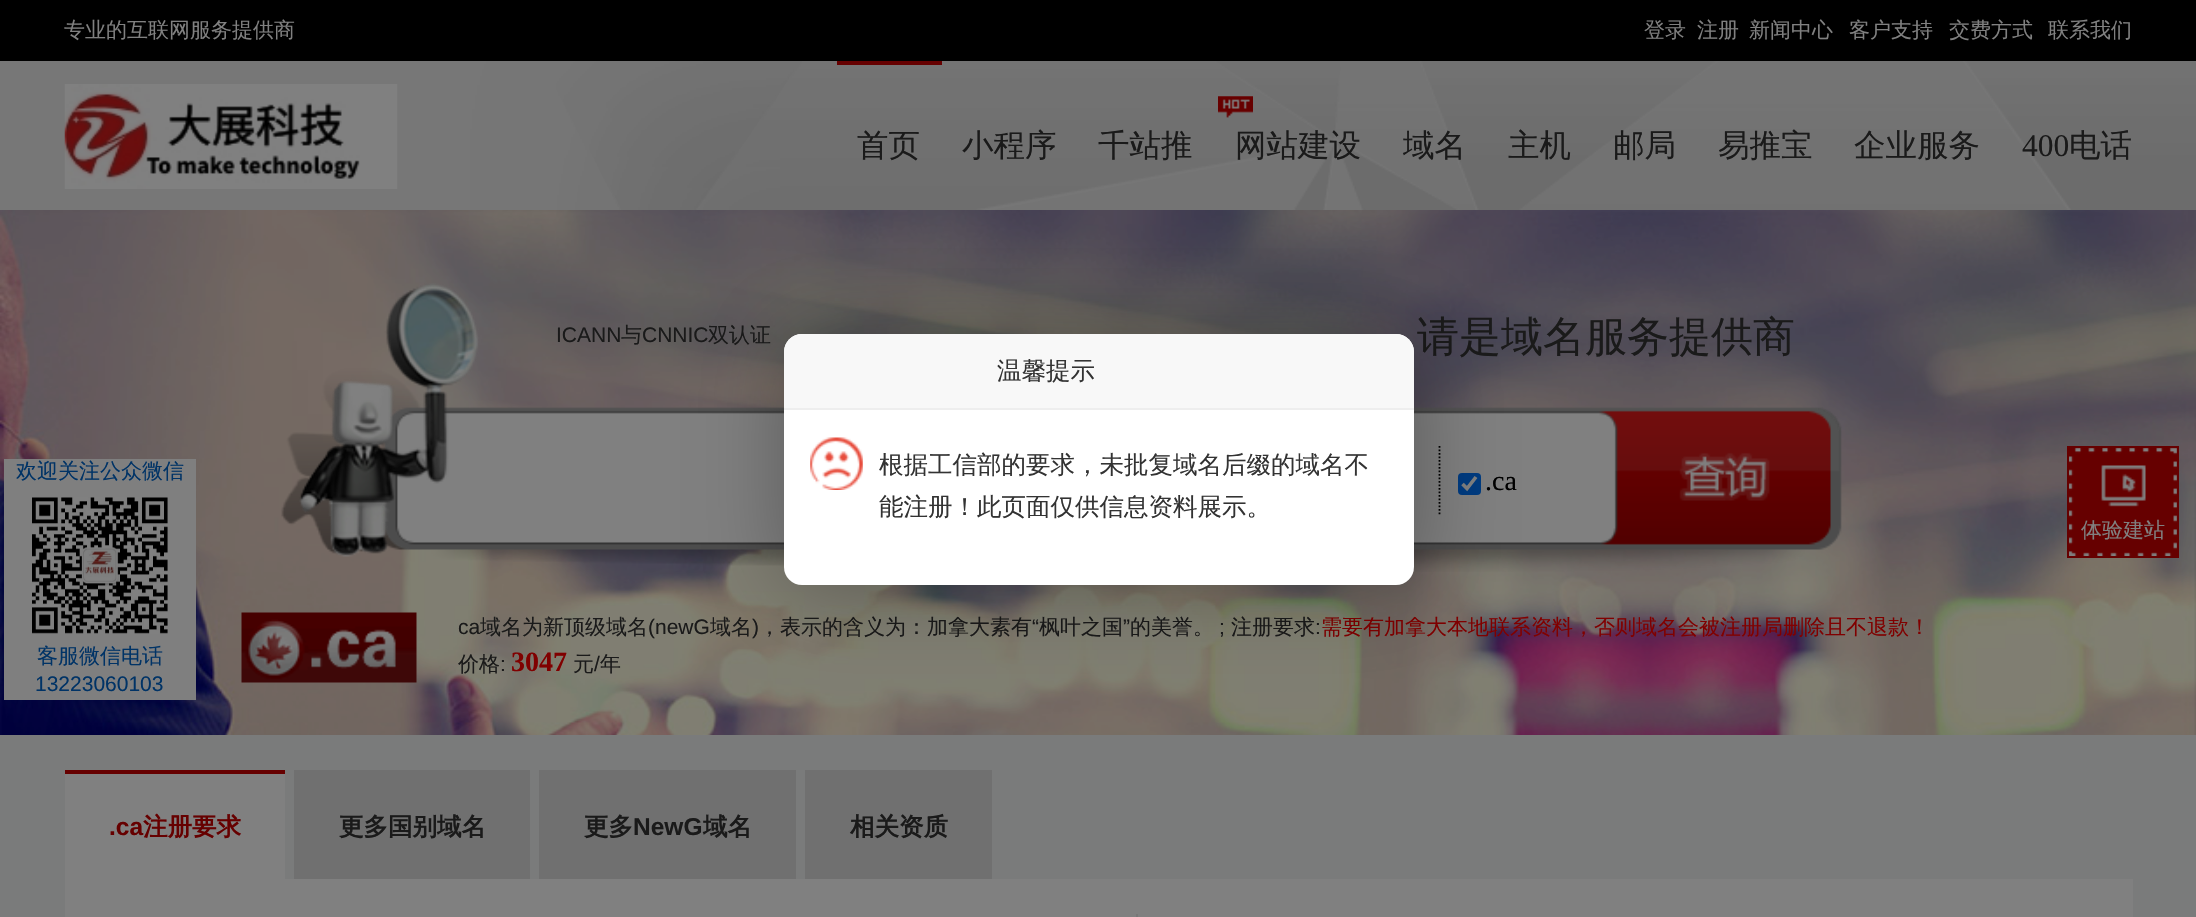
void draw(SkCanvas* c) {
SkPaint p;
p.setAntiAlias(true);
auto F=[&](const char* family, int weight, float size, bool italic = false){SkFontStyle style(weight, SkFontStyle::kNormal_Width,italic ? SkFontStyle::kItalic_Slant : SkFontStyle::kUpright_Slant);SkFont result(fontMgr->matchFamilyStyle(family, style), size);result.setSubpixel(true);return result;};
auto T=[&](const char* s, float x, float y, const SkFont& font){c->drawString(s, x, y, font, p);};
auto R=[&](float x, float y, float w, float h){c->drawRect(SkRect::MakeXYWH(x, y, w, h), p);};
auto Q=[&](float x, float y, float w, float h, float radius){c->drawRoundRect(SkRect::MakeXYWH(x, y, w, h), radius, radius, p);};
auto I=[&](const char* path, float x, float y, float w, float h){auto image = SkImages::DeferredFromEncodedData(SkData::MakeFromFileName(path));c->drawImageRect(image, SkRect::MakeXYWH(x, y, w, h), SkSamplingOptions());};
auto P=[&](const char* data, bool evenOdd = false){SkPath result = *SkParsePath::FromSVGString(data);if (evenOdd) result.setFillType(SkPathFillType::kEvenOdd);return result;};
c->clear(0xff7a7b7b);
I("1.png",0,61,2196,149);
p.setColor(0xff000000);
R(0,0,2196,61);
auto f1 = F("WenQuanYi Zen Hei",500,21);
p.setColor(0xff808080);
T("专业的互联网服务提供商",64,37,f1);
T("登录",1644,37,f1);
T("注册",1697,37,f1);
T("新闻中心",1749,37,f1);
T("客户支持",1849,37,f1);
T("交费方式",1949,37,f1);
T("联系我们",2048,37,f1);
I("2.png",64,84,334,105);
p.setColor(0xff660000);
R(837,61,105,4);
auto f2 = F("WenQuanYi Zen Hei",500,31.5);
p.setColor(0xff1a1a1a);
T("首页",857,156,f2);
T("小程序",962,156,f2);
I("3.png",1218,96,35,22);
T("千站推",1098,156,f2);
T("网站建设",1235,156,f2);
T("域名",1403,156,f2);
T("主机",1508,156,f2);
T("邮局",1613,156,f2);
T("易推宝",1718,156,f2);
T("企业服务",1854,156,f2);
auto f3 = F("Liberation Serif",400,31.5);
T("400",2022,156,f3);
T("电话",2069,156,f2);
I("4.png",0,210,2196,525);
I("5.png",281,283,1561,289);
auto f4 = F("Liberation Sans",400,21);
T("ICANN",556,342,f4);
T("与",621,342,f1);
T("CNNIC",642,342,f4);
T("双认证",708,342,f1);
auto f5 = F("WenQuanYi Zen Hei",500,42);
T("请是域名服务提供商",1417,351,f5);
p.setStroke(true);
p.setStrokeWidth(1.8);
p.setColor(0xff000000);
p.setPathEffect(SkDashPathEffect::Make({{1.75f,1.75f}}, 0));
c->drawPath(P("M1439.5 446v70"),p);
p.setPathEffect(nullptr);
p.setStroke(false);
p.setColor(0xff003b80);
Q(1458,473,23,22,4);
p.setStroke(true);
p.setStrokeWidth(3.6);
p.setColor(0xff808080);
c->drawPath(P("M1462.5 484l4.5 4.5l9-11.5"),p);
auto f6 = F("Liberation Serif",400,28);
p.setStroke(false);
p.setColor(0xff000000);
T(".ca",1485,490,f6);
I("6.png",241,612,176,71);
p.setColor(0xff1a1a1a);
T("ca",458,634,f4);
T("域名为新顶级域名",480,634,f1);
T("(newG",648,634,f4);
T("域名",710,634,f1);
T(")",752,634,f4);
T("，表示的含义为：加拿大素有",759,634,f1);
T("“",1032,634,f4);
T("枫叶之国",1039,634,f1);
T("”",1123,634,f4);
T("的美誉。",1130,634,f1);
T(";",1219,634,f4);
T("注册要求",1231,634,f1);
T(":",1315,634,f4);
p.setColor(0xff800000);
T("需要有加拿大本地联系资料，否则域名会被注册局删除且不退款！",1321,634,f1);
p.setColor(0xff1a1a1a);
T("价格",458,671,f1);
T(":",500,671,f4);
auto f7 = F("Liberation Serif",700,28);
p.setColor(0xff800000);
T("3047",511,671,f7);
p.setColor(0xff1a1a1a);
T("元",573,671,f1);
T("/",594,671,f4);
T("年",600,671,f1);
p.setColor(0x4d000000);
p.setMaskFilter(SkMaskFilter::MakeBlur(kNormal_SkBlurStyle, 44));
c->drawRoundRect(SkRect::MakeXYWH(786,336,630,250),18,18,p);
p.setMaskFilter(nullptr);
p.setColor(0xffffffff);
Q(784,334,630,251,18);
p.setColor(0xfff8f8f8);
c->drawPath(P("M802 334h594c10 0 18 8 18 18v58h-630v-58c0-10 8-18 18-18z"),p);
p.setColor(0xffeeeeee);
R(784,408,630,2);
auto f8 = F("WenQuanYi Zen Hei",500,24.5);
p.setColor(0xff333333);
T("温馨提示",997,379,f8);
I("7.png",810,437,53,53);
T("根据工信部的要求，未批复域名后缀的域名不",879,473,f8);
T("能注册！此页面仅供信息资料展示。",879,515,f8);
p.setColor(0xff7f7f7f);
R(4,459,192,241);
p.setColor(0xff003366);
T("欢迎关注公众微信",16,478,f1);
I("8.png",32,497,136,137);
T("客服微信电话",37,663,f1);
T("13223060103",35,691,f4);
p.setColor(0xff660000);
R(2069,448,108,108);
I("9.png",2069,448,108,108);
p.setStroke(true);
p.setStrokeWidth(2);
c->drawRect(SkRect::MakeXYWH(2068,447,110,110),p);
I("10.png",2101,465,45,42);
p.setStroke(false);
p.setColor(0xff808080);
T("体验建站",2081,537,f1);
R(65,774,220,105);
p.setColor(0xff660000);
R(65,770,220,4);
auto f9 = F("Liberation Sans",700,24.5);
T(".ca",109,835,f9);
auto f10 = F("WenQuanYi Zen Hei",700,24.5);
T("注册要求",143,835,f10);
p.setColor(0xff707070);
R(294,770,236,109);
p.setColor(0xff1a1a1a);
T("更多国别域名",339,835,f10);
p.setColor(0xff707070);
R(539,770,257,109);
p.setColor(0xff1a1a1a);
T("更多",584,835,f10);
T("NewG",633,835,f9);
T("域名",703,835,f10);
p.setColor(0xff707070);
R(805,770,187,109);
p.setColor(0xff1a1a1a);
T("相关资质",850,835,f10);
p.setColor(0xff808080);
R(65,879,2068,38);
p.setColor(0xff777777);
R(1136,914,2,3);
}
